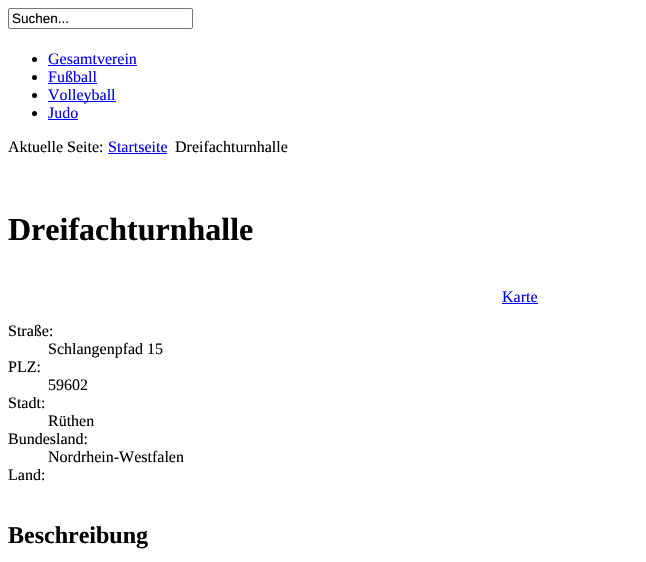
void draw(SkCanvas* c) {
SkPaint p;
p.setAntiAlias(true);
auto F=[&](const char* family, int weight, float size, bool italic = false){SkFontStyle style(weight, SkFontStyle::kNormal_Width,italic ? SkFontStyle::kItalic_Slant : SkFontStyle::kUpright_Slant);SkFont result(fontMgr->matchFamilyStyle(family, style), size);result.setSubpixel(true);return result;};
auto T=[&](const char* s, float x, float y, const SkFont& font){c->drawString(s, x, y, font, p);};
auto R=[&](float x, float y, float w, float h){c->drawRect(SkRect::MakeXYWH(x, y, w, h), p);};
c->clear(0xffffffff);
p.setStroke(true);
p.setStrokeWidth(1);
p.setColor(0xff767676);
c->drawRoundRect(SkRect::MakeXYWH(8.5,8.5,184,20),1.5,1.5,p);
auto f1 = F("Liberation Sans",400,13.5);
p.setStroke(false);
p.setColor(0xff000000);
T("Suchen...",12,23,f1);
c->drawCircle(34.5,59.5,2.5,p);
auto f2 = F("Liberation Serif",400,16);
p.setColor(0xff0000ee);
T("Gesamtverein",48,64,f2);
R(48,65,89,1);
p.setColor(0xff000000);
c->drawCircle(34.5,77.5,2.5,p);
p.setColor(0xff0000ee);
T("Fußball",48,82,f2);
R(48,83,49,1);
p.setColor(0xff000000);
c->drawCircle(34.5,95.5,2.5,p);
p.setColor(0xff0000ee);
R(48,101,68,1);
T("Volleyball",48,100,f2);
p.setColor(0xff000000);
c->drawCircle(34.5,113.5,2.5,p);
p.setColor(0xff0000ee);
T("Judo",48,118,f2);
R(48,119,30,1);
p.setColor(0xff000000);
T("Aktuelle Seite:",8,152,f2);
p.setColor(0xff0000ee);
T("Startseite",108,152,f2);
R(108,153,59,1);
p.setColor(0xff000000);
T("Dreifachturnhalle",175,152,f2);
auto f3 = F("Liberation Serif",700,32);
T("Dreifachturnhalle",8,240,f3);
p.setColor(0xff0000ee);
T("Karte",502,302,f2);
R(502,303,36,1);
p.setColor(0xff000000);
T("Straße:",8,336,f2);
T("Schlangenpfad 15",48,354,f2);
T("PLZ:",8,372,f2);
T("59602",48,390,f2);
T("Stadt:",8,408,f2);
T("Rüthen",48,426,f2);
T("Bundesland:",8,444,f2);
T("Nordrhein-Westfalen",48,462,f2);
T("Land:",8,480,f2);
auto f4 = F("Liberation Serif",700,24);
T("Beschreibung",8,543,f4);
}
